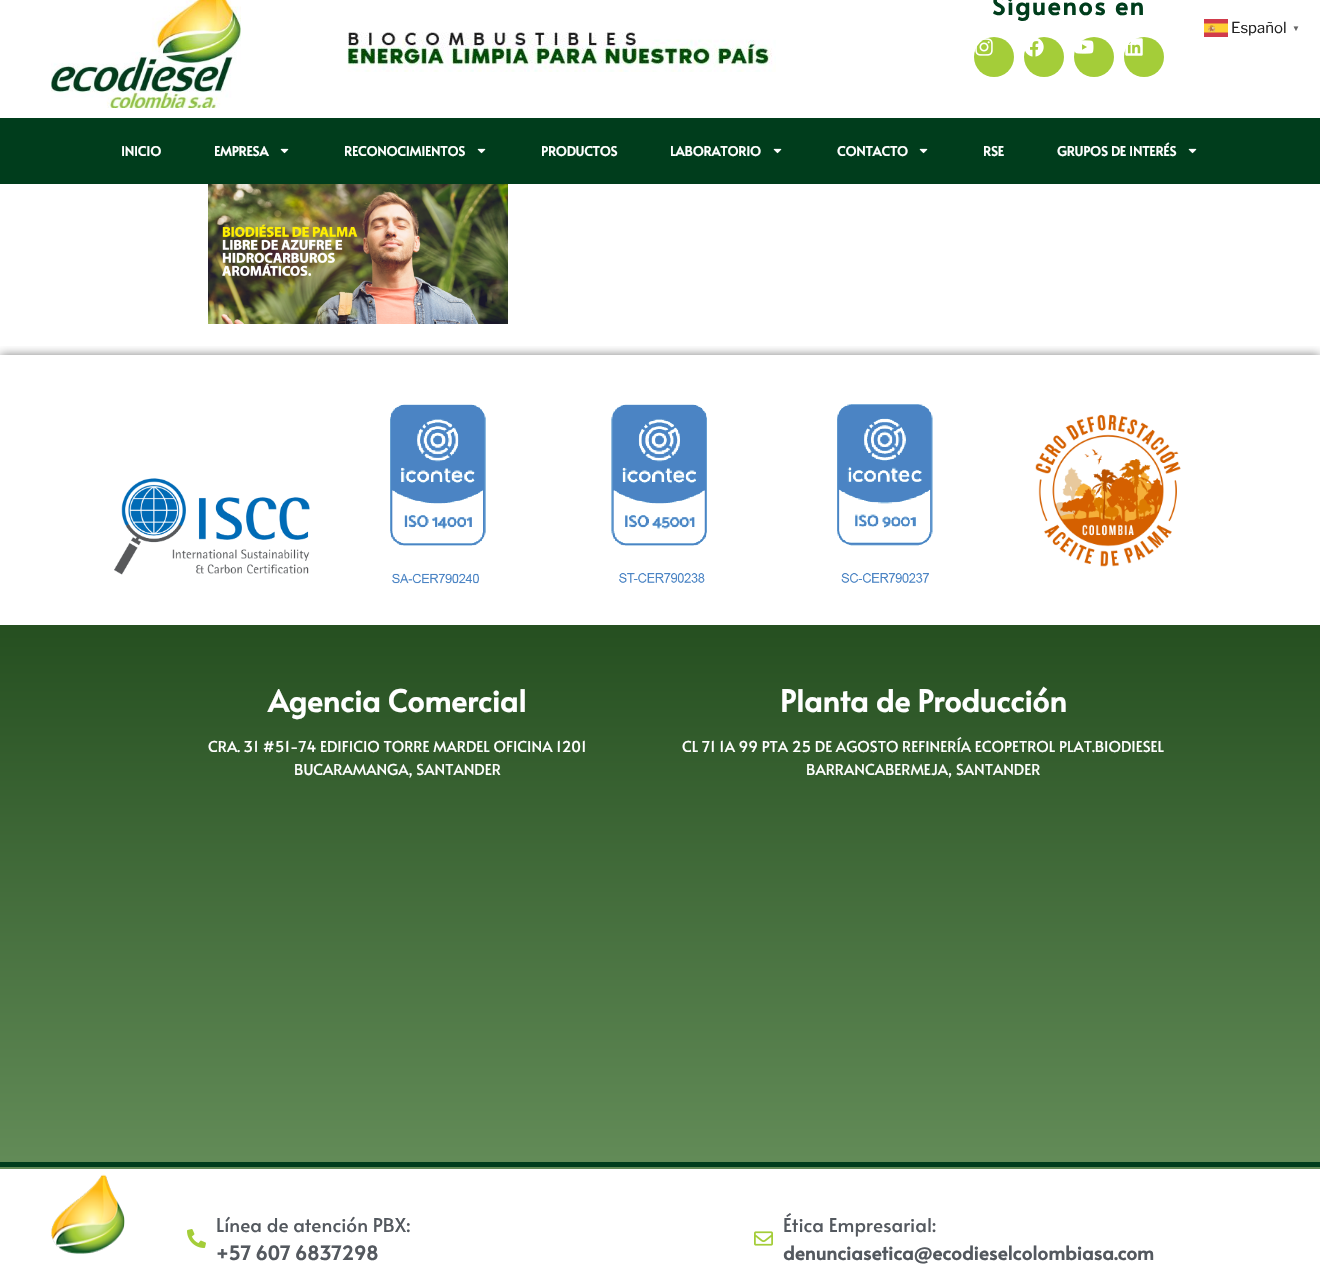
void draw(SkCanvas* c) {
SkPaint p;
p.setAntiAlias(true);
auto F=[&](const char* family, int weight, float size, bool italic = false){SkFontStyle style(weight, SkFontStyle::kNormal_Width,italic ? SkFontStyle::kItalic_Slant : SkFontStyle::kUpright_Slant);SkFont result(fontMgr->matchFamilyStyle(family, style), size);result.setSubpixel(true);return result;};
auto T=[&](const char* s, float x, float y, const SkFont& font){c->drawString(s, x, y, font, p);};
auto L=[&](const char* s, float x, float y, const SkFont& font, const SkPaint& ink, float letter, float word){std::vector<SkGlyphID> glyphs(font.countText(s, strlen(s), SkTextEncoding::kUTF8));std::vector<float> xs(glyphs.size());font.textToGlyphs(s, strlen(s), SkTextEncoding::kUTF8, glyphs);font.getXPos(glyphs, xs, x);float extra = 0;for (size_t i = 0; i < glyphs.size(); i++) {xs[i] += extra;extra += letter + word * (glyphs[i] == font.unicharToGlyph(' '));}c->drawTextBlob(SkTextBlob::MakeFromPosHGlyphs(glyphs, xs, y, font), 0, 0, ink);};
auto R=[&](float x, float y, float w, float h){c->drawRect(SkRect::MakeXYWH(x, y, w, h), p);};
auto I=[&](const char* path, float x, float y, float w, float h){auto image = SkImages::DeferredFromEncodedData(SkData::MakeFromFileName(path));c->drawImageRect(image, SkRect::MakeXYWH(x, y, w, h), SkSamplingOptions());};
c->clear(0xffffffff);
I("1.png",51,0,190,108);
auto f1 = F("Alata",700,25);
p.setColor(0xff003d1c);
L("Síguenos en",992,15,f1,p,1.6,0);
p.setColor(0xffa4cd39);
c->drawCircle(994,57,20,p);
I("2.png",975,38,18,18);
c->drawCircle(1044,57,20,p);
I("3.png",1025,38,19,19);
c->drawCircle(1094,57,20,p);
I("4.png",1074,40,20,14);
c->drawCircle(1144,57,20,p);
I("5.png",1125,38,18,18);
I("6.png",347,32,429,40);
p.setColor(0xff003d1c);
R(0,118,1320,66);
auto f2 = F("Alata",700,13);
p.setColor(0xffffffff);
T("INICIO",121,156,f2);
T("EMPRESA",214,156,f2);
I("7.png",280,148,9,6);
T("RECONOCIMIENTOS",344,156,f2);
I("7.png",477,148,9,6);
T("PRODUCTOS",541,156,f2);
T("LABORATORIO",670,156,f2);
I("7.png",773,148,9,6);
T("CONTACTO",837,156,f2);
I("7.png",919,148,9,6);
T("RSE",983,156,f2);
T("GRUPOS DE INTERÉS",1057,156,f2);
I("7.png",1188,148,9,6);
I("8.png",1204,19,24,18);
auto f3 = F("Libre Franklin",100,15);
p.setColor(0xff222222);
T("Español",1231,33,f3);
auto f4 = F("Liberation Sans",700,8);
p.setColor(0xff666666);
T("▼",1292,31,f4);
I("9.png",208,184,300,140);
c->save();
c->clipRect(SkRect::MakeXYWH(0,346,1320,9));
p.setColor(0x80000000);
p.setMaskFilter(SkMaskFilter::MakeBlur(kNormal_SkBlurStyle, 5));
c->drawRect(SkRect::MakeXYWH(0,355,1320,270),p);
p.setMaskFilter(nullptr);
c->restore();
I("10.png",114,478,196,97);
I("11.png",390,404,96,180);
I("12.png",611,404,96,179);
I("13.png",837,404,96,179);
I("14.png",1035,414,146,153);
{
const SkColor colors[] = {0xff254f20,0xff628b57};
const float stops[] = {0,1};
const SkPoint ends[] = {{660,625}, {660,1160}};
p.setShader(SkGradientShader::MakeLinear(ends, colors, stops, 2, SkTileMode::kClamp));
p.setAlpha(255);
}
R(0,625,1320,535);
auto f5 = F("Alata",700,30);
p.setShader(nullptr);
p.setColor(0xffffffff);
T("Agencia Comercial",268,712,f5);
auto f6 = F("Alata",400,15);
T("CRA. 31 #51-74 EDIFICIO TORRE MARDEL OFICINA 1201",208,752,f6);
T("BUCARAMANGA, SANTANDER",294,775,f6);
T("Planta de Producción",780,712,f5);
T("CL 71 1A 99 PTA 25 DE AGOSTO REFINERÍA ECOPETROL PLAT.BIODIESEL",682,752,f6);
T("BARRANCABERMEJA, SANTANDER",806,775,f6);
p.setColor(0xff628b57);
R(0,1160,1320,9);
p.setColor(0xff003d1c);
R(0,1162,1320,5);
I("15.png",51,1174,74,80);
I("16.png",187,1229,19,19);
auto f7 = F("Alata",400,19);
p.setColor(0xff54595f);
T("Línea de atención PBX:",216,1232,f7);
auto f8 = F("Alata",700,19);
T("+57 607 6837298",216,1260,f8);
I("17.png",754,1231,19,15);
T("Ética Empresarial:",783,1232,f7);
T("denunciasetica@ecodieselcolombiasa.com",783,1260,f8);
}
